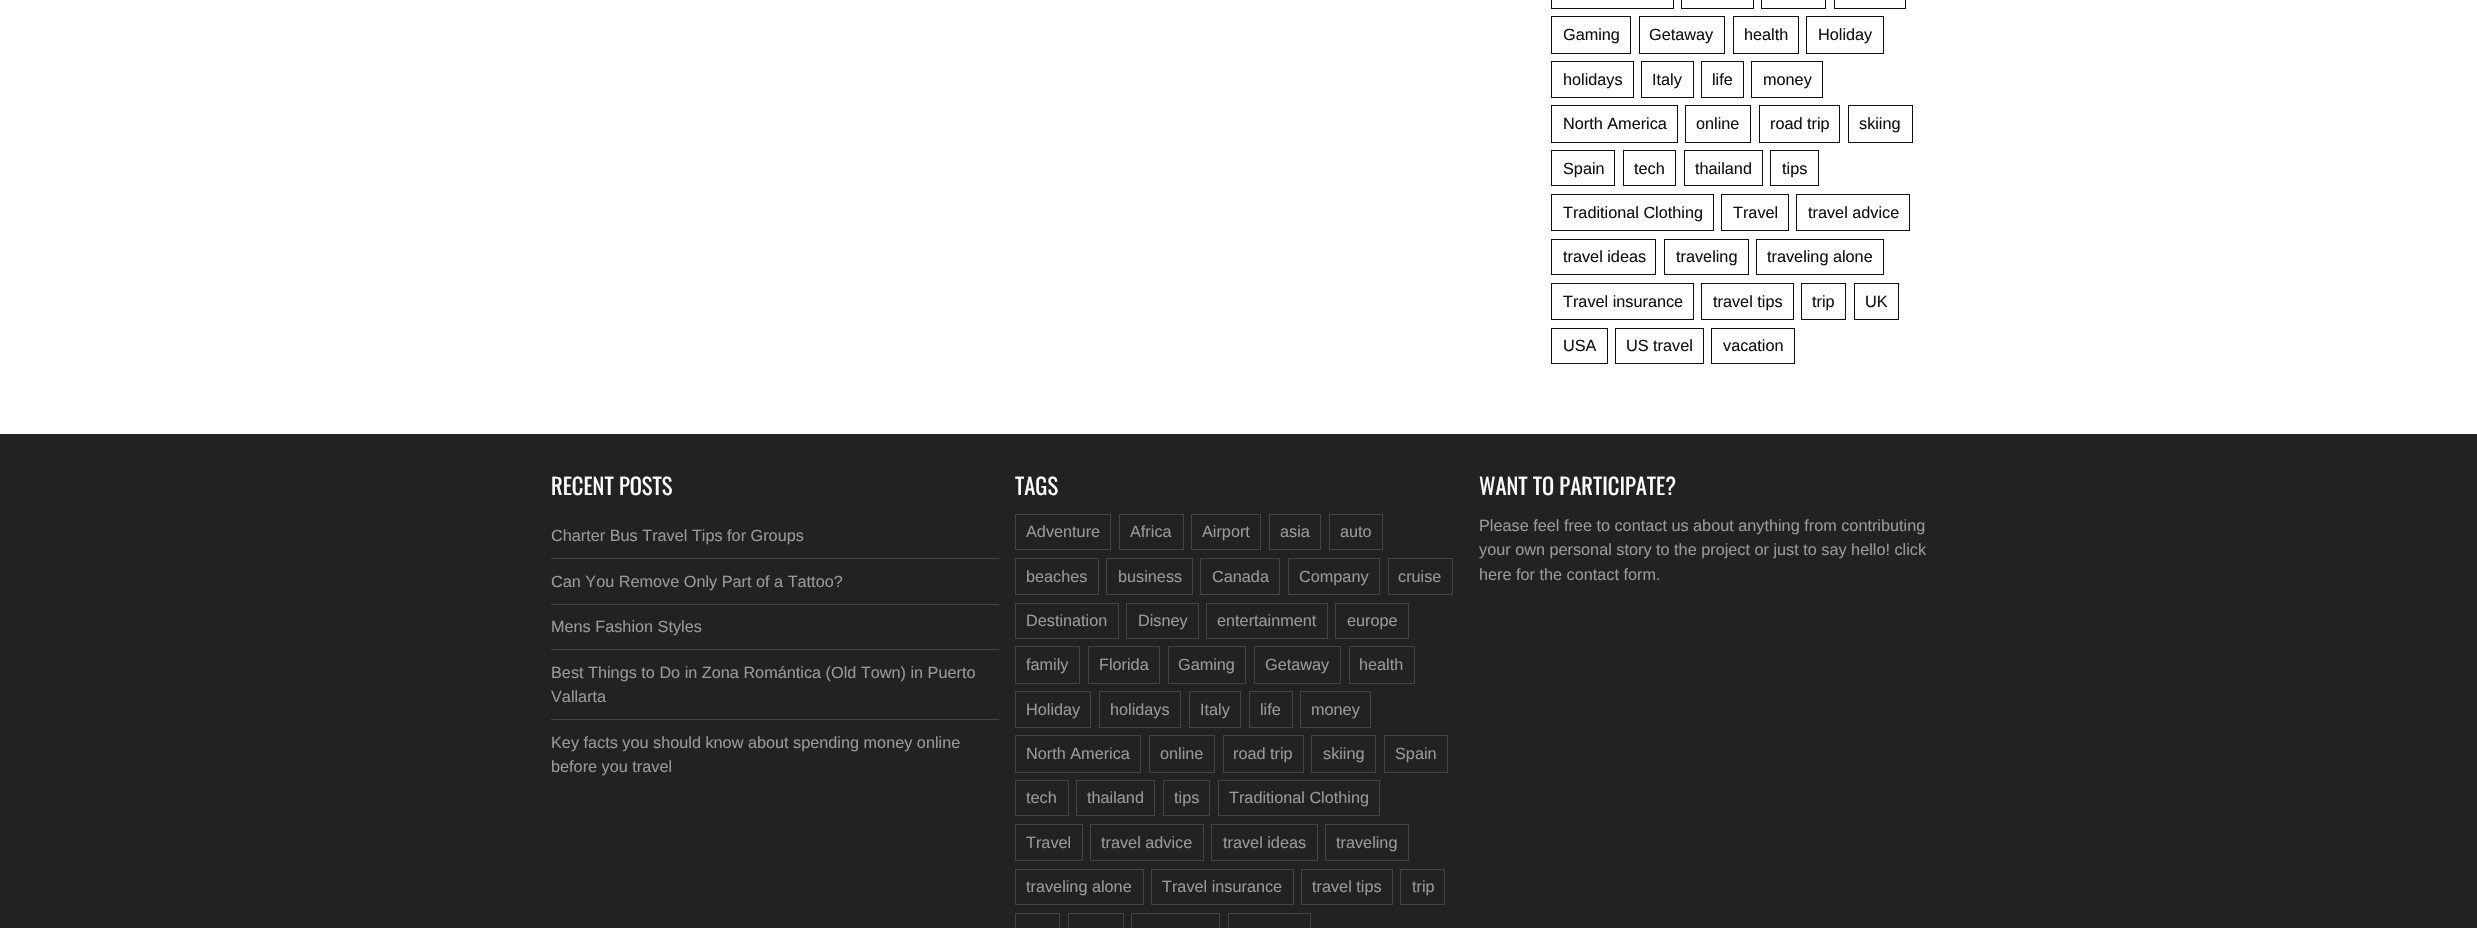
void draw(SkCanvas* c) {
SkPaint p;
p.setAntiAlias(true);
auto F=[&](const char* family, int weight, float size, bool italic = false){SkFontStyle style(weight, SkFontStyle::kNormal_Width,italic ? SkFontStyle::kItalic_Slant : SkFontStyle::kUpright_Slant);SkFont result(fontMgr->matchFamilyStyle(family, style), size);result.setSubpixel(true);return result;};
auto T=[&](const char* s, float x, float y, const SkFont& font){c->drawString(s, x, y, font, p);};
auto R=[&](float x, float y, float w, float h){c->drawRect(SkRect::MakeXYWH(x, y, w, h), p);};
c->clear(0xffffffff);
p.setStroke(true);
p.setStrokeWidth(1);
p.setColor(0xff111111);
c->drawRect(SkRect::MakeXYWH(1551.5,-.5,122,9),p);
c->drawRect(SkRect::MakeXYWH(1681.5,-.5,72,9),p);
c->drawRect(SkRect::MakeXYWH(1761.5,-.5,64,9),p);
c->drawRect(SkRect::MakeXYWH(1834.5,-.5,71,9),p);
c->drawRect(SkRect::MakeXYWH(1551.5,16.5,79,37),p);
auto f1 = F("Liberation Sans",400,16.25);
p.setStroke(false);
T("Gaming",1563,40,f1);
p.setStroke(true);
c->drawRect(SkRect::MakeXYWH(1639.5,16.5,85,37),p);
p.setStroke(false);
T("Getaway",1649,40,f1);
p.setStroke(true);
c->drawRect(SkRect::MakeXYWH(1733.5,16.5,65,37),p);
p.setStroke(false);
T("health",1744,40,f1);
p.setStroke(true);
c->drawRect(SkRect::MakeXYWH(1806.5,16.5,77,37),p);
p.setStroke(false);
T("Holiday",1818,40,f1);
p.setStroke(true);
c->drawRect(SkRect::MakeXYWH(1551.5,61.5,82,36),p);
p.setStroke(false);
T("holidays",1563,85,f1);
p.setStroke(true);
c->drawRect(SkRect::MakeXYWH(1641.5,61.5,52,36),p);
p.setStroke(false);
T("Italy",1652,85,f1);
p.setStroke(true);
c->drawRect(SkRect::MakeXYWH(1701.5,61.5,42,36),p);
p.setStroke(false);
T("life",1712,85,f1);
p.setStroke(true);
c->drawRect(SkRect::MakeXYWH(1751.5,61.5,71,36),p);
p.setStroke(false);
T("money",1763,85,f1);
p.setStroke(true);
c->drawRect(SkRect::MakeXYWH(1551.5,105.5,126,37),p);
p.setStroke(false);
T("North America",1563,129,f1);
p.setStroke(true);
c->drawRect(SkRect::MakeXYWH(1685.5,105.5,65,37),p);
p.setStroke(false);
T("online",1696,129,f1);
p.setStroke(true);
c->drawRect(SkRect::MakeXYWH(1759.5,105.5,80,37),p);
p.setStroke(false);
T("road trip",1770,129,f1);
p.setStroke(true);
c->drawRect(SkRect::MakeXYWH(1848.5,105.5,64,37),p);
p.setStroke(false);
T("skiing",1859,129,f1);
p.setStroke(true);
c->drawRect(SkRect::MakeXYWH(1551.5,150.5,63,35),p);
p.setStroke(false);
T("Spain",1563,174,f1);
p.setStroke(true);
c->drawRect(SkRect::MakeXYWH(1623.5,150.5,52,35),p);
p.setStroke(false);
T("tech",1634,174,f1);
p.setStroke(true);
c->drawRect(SkRect::MakeXYWH(1684.5,150.5,78,35),p);
p.setStroke(false);
T("thailand",1695,174,f1);
p.setStroke(true);
c->drawRect(SkRect::MakeXYWH(1770.5,150.5,48,35),p);
p.setStroke(false);
T("tips",1782,174,f1);
p.setStroke(true);
c->drawRect(SkRect::MakeXYWH(1551.5,194.5,162,36),p);
p.setStroke(false);
T("Traditional Clothing",1563,218,f1);
p.setStroke(true);
c->drawRect(SkRect::MakeXYWH(1721.5,194.5,67,36),p);
p.setStroke(false);
T("Travel",1733,218,f1);
p.setStroke(true);
c->drawRect(SkRect::MakeXYWH(1796.5,194.5,113,36),p);
p.setStroke(false);
T("travel advice",1808,218,f1);
p.setStroke(true);
c->drawRect(SkRect::MakeXYWH(1551.5,239.5,104,35),p);
p.setStroke(false);
T("travel ideas",1563,262,f1);
p.setStroke(true);
c->drawRect(SkRect::MakeXYWH(1664.5,239.5,84,35),p);
p.setStroke(false);
T("traveling",1676,262,f1);
p.setStroke(true);
c->drawRect(SkRect::MakeXYWH(1756.5,239.5,127,35),p);
p.setStroke(false);
T("traveling alone",1767,262,f1);
p.setStroke(true);
c->drawRect(SkRect::MakeXYWH(1551.5,283.5,142,36),p);
p.setStroke(false);
T("Travel insurance",1563,307,f1);
p.setStroke(true);
c->drawRect(SkRect::MakeXYWH(1701.5,283.5,92,36),p);
p.setStroke(false);
T("travel tips",1713,307,f1);
p.setStroke(true);
c->drawRect(SkRect::MakeXYWH(1801.5,283.5,44,36),p);
p.setStroke(false);
T("trip",1812,307,f1);
p.setStroke(true);
c->drawRect(SkRect::MakeXYWH(1854.5,283.5,44,36),p);
p.setStroke(false);
T("UK",1865,307,f1);
p.setStroke(true);
c->drawRect(SkRect::MakeXYWH(1551.5,328.5,56,35),p);
p.setStroke(false);
T("USA",1563,351,f1);
p.setStroke(true);
c->drawRect(SkRect::MakeXYWH(1615.5,328.5,88,35),p);
p.setStroke(false);
T("US travel",1626,351,f1);
p.setStroke(true);
c->drawRect(SkRect::MakeXYWH(1711.5,328.5,83,35),p);
p.setStroke(false);
T("vacation",1723,351,f1);
p.setColor(0xff222222);
R(0,434,2477,494);
auto f2 = F("Oswald",400,22.5);
p.setColor(0xffffffff);
T("RECENT POSTS",551,495,f2);
p.setColor(0xff444444);
R(551,558,448,1);
p.setColor(0xff999999);
T("Charter Bus Travel Tips for Groups",551,541,f1);
p.setColor(0xff444444);
R(551,604,448,1);
p.setColor(0xff999999);
T("Can You Remove Only Part of a Tattoo?",551,587,f1);
p.setColor(0xff444444);
R(551,649,448,1);
p.setColor(0xff999999);
T("Mens Fashion Styles",551,632,f1);
p.setColor(0xff444444);
R(551,719,448,1);
p.setColor(0xff999999);
T("Best Things to Do in Zona Romántica (Old Town) in Puerto",551,678,f1);
T("Vallarta",551,702,f1);
T("Key facts you should know about spending money online",551,748,f1);
T("before you travel",551,772,f1);
p.setColor(0xffffffff);
T("TAGS",1015,495,f2);
p.setStroke(true);
p.setColor(0xff444444);
c->drawRect(SkRect::MakeXYWH(1015.5,514.5,95,35),p);
p.setStroke(false);
p.setColor(0xff999999);
T("Adventure",1026,537,f1);
p.setStroke(true);
p.setColor(0xff444444);
c->drawRect(SkRect::MakeXYWH(1119.5,514.5,64,35),p);
p.setStroke(false);
p.setColor(0xff999999);
T("Africa",1130,537,f1);
p.setStroke(true);
p.setColor(0xff444444);
c->drawRect(SkRect::MakeXYWH(1191.5,514.5,69,35),p);
p.setStroke(false);
p.setColor(0xff999999);
T("Airport",1202,537,f1);
p.setStroke(true);
p.setColor(0xff444444);
c->drawRect(SkRect::MakeXYWH(1269.5,514.5,51,35),p);
p.setStroke(false);
p.setColor(0xff999999);
T("asia",1280,537,f1);
p.setStroke(true);
p.setColor(0xff444444);
c->drawRect(SkRect::MakeXYWH(1329.5,514.5,53,35),p);
p.setStroke(false);
p.setColor(0xff999999);
T("auto",1340,537,f1);
p.setStroke(true);
p.setColor(0xff444444);
c->drawRect(SkRect::MakeXYWH(1015.5,558.5,83,36),p);
p.setStroke(false);
p.setColor(0xff999999);
T("beaches",1026,582,f1);
p.setStroke(true);
p.setColor(0xff444444);
c->drawRect(SkRect::MakeXYWH(1106.5,558.5,86,36),p);
p.setStroke(false);
p.setColor(0xff999999);
T("business",1118,582,f1);
p.setStroke(true);
p.setColor(0xff444444);
c->drawRect(SkRect::MakeXYWH(1200.5,558.5,79,36),p);
p.setStroke(false);
p.setColor(0xff999999);
T("Canada",1212,582,f1);
p.setStroke(true);
p.setColor(0xff444444);
c->drawRect(SkRect::MakeXYWH(1288.5,558.5,91,36),p);
p.setStroke(false);
p.setColor(0xff999999);
T("Company",1299,582,f1);
p.setStroke(true);
p.setColor(0xff444444);
c->drawRect(SkRect::MakeXYWH(1388.5,558.5,64,36),p);
p.setStroke(false);
p.setColor(0xff999999);
T("cruise",1398,582,f1);
p.setStroke(true);
p.setColor(0xff444444);
c->drawRect(SkRect::MakeXYWH(1015.5,603.5,103,35),p);
p.setStroke(false);
p.setColor(0xff999999);
T("Destination",1026,626,f1);
p.setStroke(true);
p.setColor(0xff444444);
c->drawRect(SkRect::MakeXYWH(1126.5,603.5,72,35),p);
p.setStroke(false);
p.setColor(0xff999999);
T("Disney",1138,626,f1);
p.setStroke(true);
p.setColor(0xff444444);
c->drawRect(SkRect::MakeXYWH(1206.5,603.5,121,35),p);
p.setStroke(false);
p.setColor(0xff999999);
T("entertainment",1217,626,f1);
p.setStroke(true);
p.setColor(0xff444444);
c->drawRect(SkRect::MakeXYWH(1335.5,603.5,73,35),p);
p.setStroke(false);
p.setColor(0xff999999);
T("europe",1347,626,f1);
p.setStroke(true);
p.setColor(0xff444444);
c->drawRect(SkRect::MakeXYWH(1015.5,646.5,64,37),p);
p.setStroke(false);
p.setColor(0xff999999);
T("family",1026,670,f1);
p.setStroke(true);
p.setColor(0xff444444);
c->drawRect(SkRect::MakeXYWH(1088.5,646.5,71,37),p);
p.setStroke(false);
p.setColor(0xff999999);
T("Florida",1099,670,f1);
p.setStroke(true);
p.setColor(0xff444444);
c->drawRect(SkRect::MakeXYWH(1168.5,646.5,77,37),p);
p.setStroke(false);
p.setColor(0xff999999);
T("Gaming",1178,670,f1);
p.setStroke(true);
p.setColor(0xff444444);
c->drawRect(SkRect::MakeXYWH(1254.5,646.5,86,37),p);
p.setStroke(false);
p.setColor(0xff999999);
T("Getaway",1265,670,f1);
p.setStroke(true);
p.setColor(0xff444444);
c->drawRect(SkRect::MakeXYWH(1349.5,646.5,65,37),p);
p.setStroke(false);
p.setColor(0xff999999);
T("health",1359,670,f1);
p.setStroke(true);
p.setColor(0xff444444);
c->drawRect(SkRect::MakeXYWH(1015.5,691.5,75,36),p);
p.setStroke(false);
p.setColor(0xff999999);
T("Holiday",1026,715,f1);
p.setStroke(true);
p.setColor(0xff444444);
c->drawRect(SkRect::MakeXYWH(1099.5,691.5,81,36),p);
p.setStroke(false);
p.setColor(0xff999999);
T("holidays",1110,715,f1);
p.setStroke(true);
p.setColor(0xff444444);
c->drawRect(SkRect::MakeXYWH(1189.5,691.5,51,36),p);
p.setStroke(false);
p.setColor(0xff999999);
T("Italy",1200,715,f1);
p.setStroke(true);
p.setColor(0xff444444);
c->drawRect(SkRect::MakeXYWH(1249.5,691.5,43,36),p);
p.setStroke(false);
p.setColor(0xff999999);
T("life",1260,715,f1);
p.setStroke(true);
p.setColor(0xff444444);
c->drawRect(SkRect::MakeXYWH(1300.5,691.5,70,36),p);
p.setStroke(false);
p.setColor(0xff999999);
T("money",1311,715,f1);
p.setStroke(true);
p.setColor(0xff444444);
c->drawRect(SkRect::MakeXYWH(1015.5,735.5,125,37),p);
p.setStroke(false);
p.setColor(0xff999999);
T("North America",1026,759,f1);
p.setStroke(true);
p.setColor(0xff444444);
c->drawRect(SkRect::MakeXYWH(1149.5,735.5,65,37),p);
p.setStroke(false);
p.setColor(0xff999999);
T("online",1160,759,f1);
p.setStroke(true);
p.setColor(0xff444444);
c->drawRect(SkRect::MakeXYWH(1223.5,735.5,80,37),p);
p.setStroke(false);
p.setColor(0xff999999);
T("road trip",1233,759,f1);
p.setStroke(true);
p.setColor(0xff444444);
c->drawRect(SkRect::MakeXYWH(1311.5,735.5,64,37),p);
p.setStroke(false);
p.setColor(0xff999999);
T("skiing",1323,759,f1);
p.setStroke(true);
p.setColor(0xff444444);
c->drawRect(SkRect::MakeXYWH(1384.5,735.5,63,37),p);
p.setStroke(false);
p.setColor(0xff999999);
T("Spain",1395,759,f1);
p.setStroke(true);
p.setColor(0xff444444);
c->drawRect(SkRect::MakeXYWH(1015.5,780.5,53,35),p);
p.setStroke(false);
p.setColor(0xff999999);
T("tech",1026,803,f1);
p.setStroke(true);
p.setColor(0xff444444);
c->drawRect(SkRect::MakeXYWH(1076.5,780.5,78,35),p);
p.setStroke(false);
p.setColor(0xff999999);
T("thailand",1087,803,f1);
p.setStroke(true);
p.setColor(0xff444444);
c->drawRect(SkRect::MakeXYWH(1163.5,780.5,46,35),p);
p.setStroke(false);
p.setColor(0xff999999);
T("tips",1174,803,f1);
p.setStroke(true);
p.setColor(0xff444444);
c->drawRect(SkRect::MakeXYWH(1218.5,780.5,161,35),p);
p.setStroke(false);
p.setColor(0xff999999);
T("Traditional Clothing",1229,803,f1);
p.setStroke(true);
p.setColor(0xff444444);
c->drawRect(SkRect::MakeXYWH(1015.5,824.5,67,36),p);
p.setStroke(false);
p.setColor(0xff999999);
T("Travel",1026,848,f1);
p.setStroke(true);
p.setColor(0xff444444);
c->drawRect(SkRect::MakeXYWH(1090.5,824.5,113,36),p);
p.setStroke(false);
p.setColor(0xff999999);
T("travel advice",1101,848,f1);
p.setStroke(true);
p.setColor(0xff444444);
c->drawRect(SkRect::MakeXYWH(1211.5,824.5,106,36),p);
p.setStroke(false);
p.setColor(0xff999999);
T("travel ideas",1223,848,f1);
p.setStroke(true);
p.setColor(0xff444444);
c->drawRect(SkRect::MakeXYWH(1325.5,824.5,83,36),p);
p.setStroke(false);
p.setColor(0xff999999);
T("traveling",1336,848,f1);
p.setStroke(true);
p.setColor(0xff444444);
c->drawRect(SkRect::MakeXYWH(1015.5,869.5,128,35),p);
p.setStroke(false);
p.setColor(0xff999999);
T("traveling alone",1026,892,f1);
p.setStroke(true);
p.setColor(0xff444444);
c->drawRect(SkRect::MakeXYWH(1151.5,869.5,142,35),p);
p.setStroke(false);
p.setColor(0xff999999);
T("Travel insurance",1162,892,f1);
p.setStroke(true);
p.setColor(0xff444444);
c->drawRect(SkRect::MakeXYWH(1301.5,869.5,91,35),p);
p.setStroke(false);
p.setColor(0xff999999);
T("travel tips",1312,892,f1);
p.setStroke(true);
p.setColor(0xff444444);
c->drawRect(SkRect::MakeXYWH(1400.5,869.5,44,35),p);
p.setStroke(false);
p.setColor(0xff999999);
T("trip",1412,892,f1);
p.setStroke(true);
p.setColor(0xff444444);
c->drawRect(SkRect::MakeXYWH(1015.5,913.5,44,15),p);
c->drawRect(SkRect::MakeXYWH(1068.5,913.5,55,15),p);
c->drawRect(SkRect::MakeXYWH(1131.5,913.5,88,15),p);
c->drawRect(SkRect::MakeXYWH(1228.5,913.5,82,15),p);
p.setStroke(false);
p.setColor(0xffffffff);
T("WANT TO PARTICIPATE?",1479,495,f2);
p.setColor(0xff999999);
T("Please feel free to contact us about anything from contributing",1479,531,f1);
T("your own personal story to the project or just to say hello! click",1479,555,f1);
T("here for the contact form.",1479,580,f1);
}
